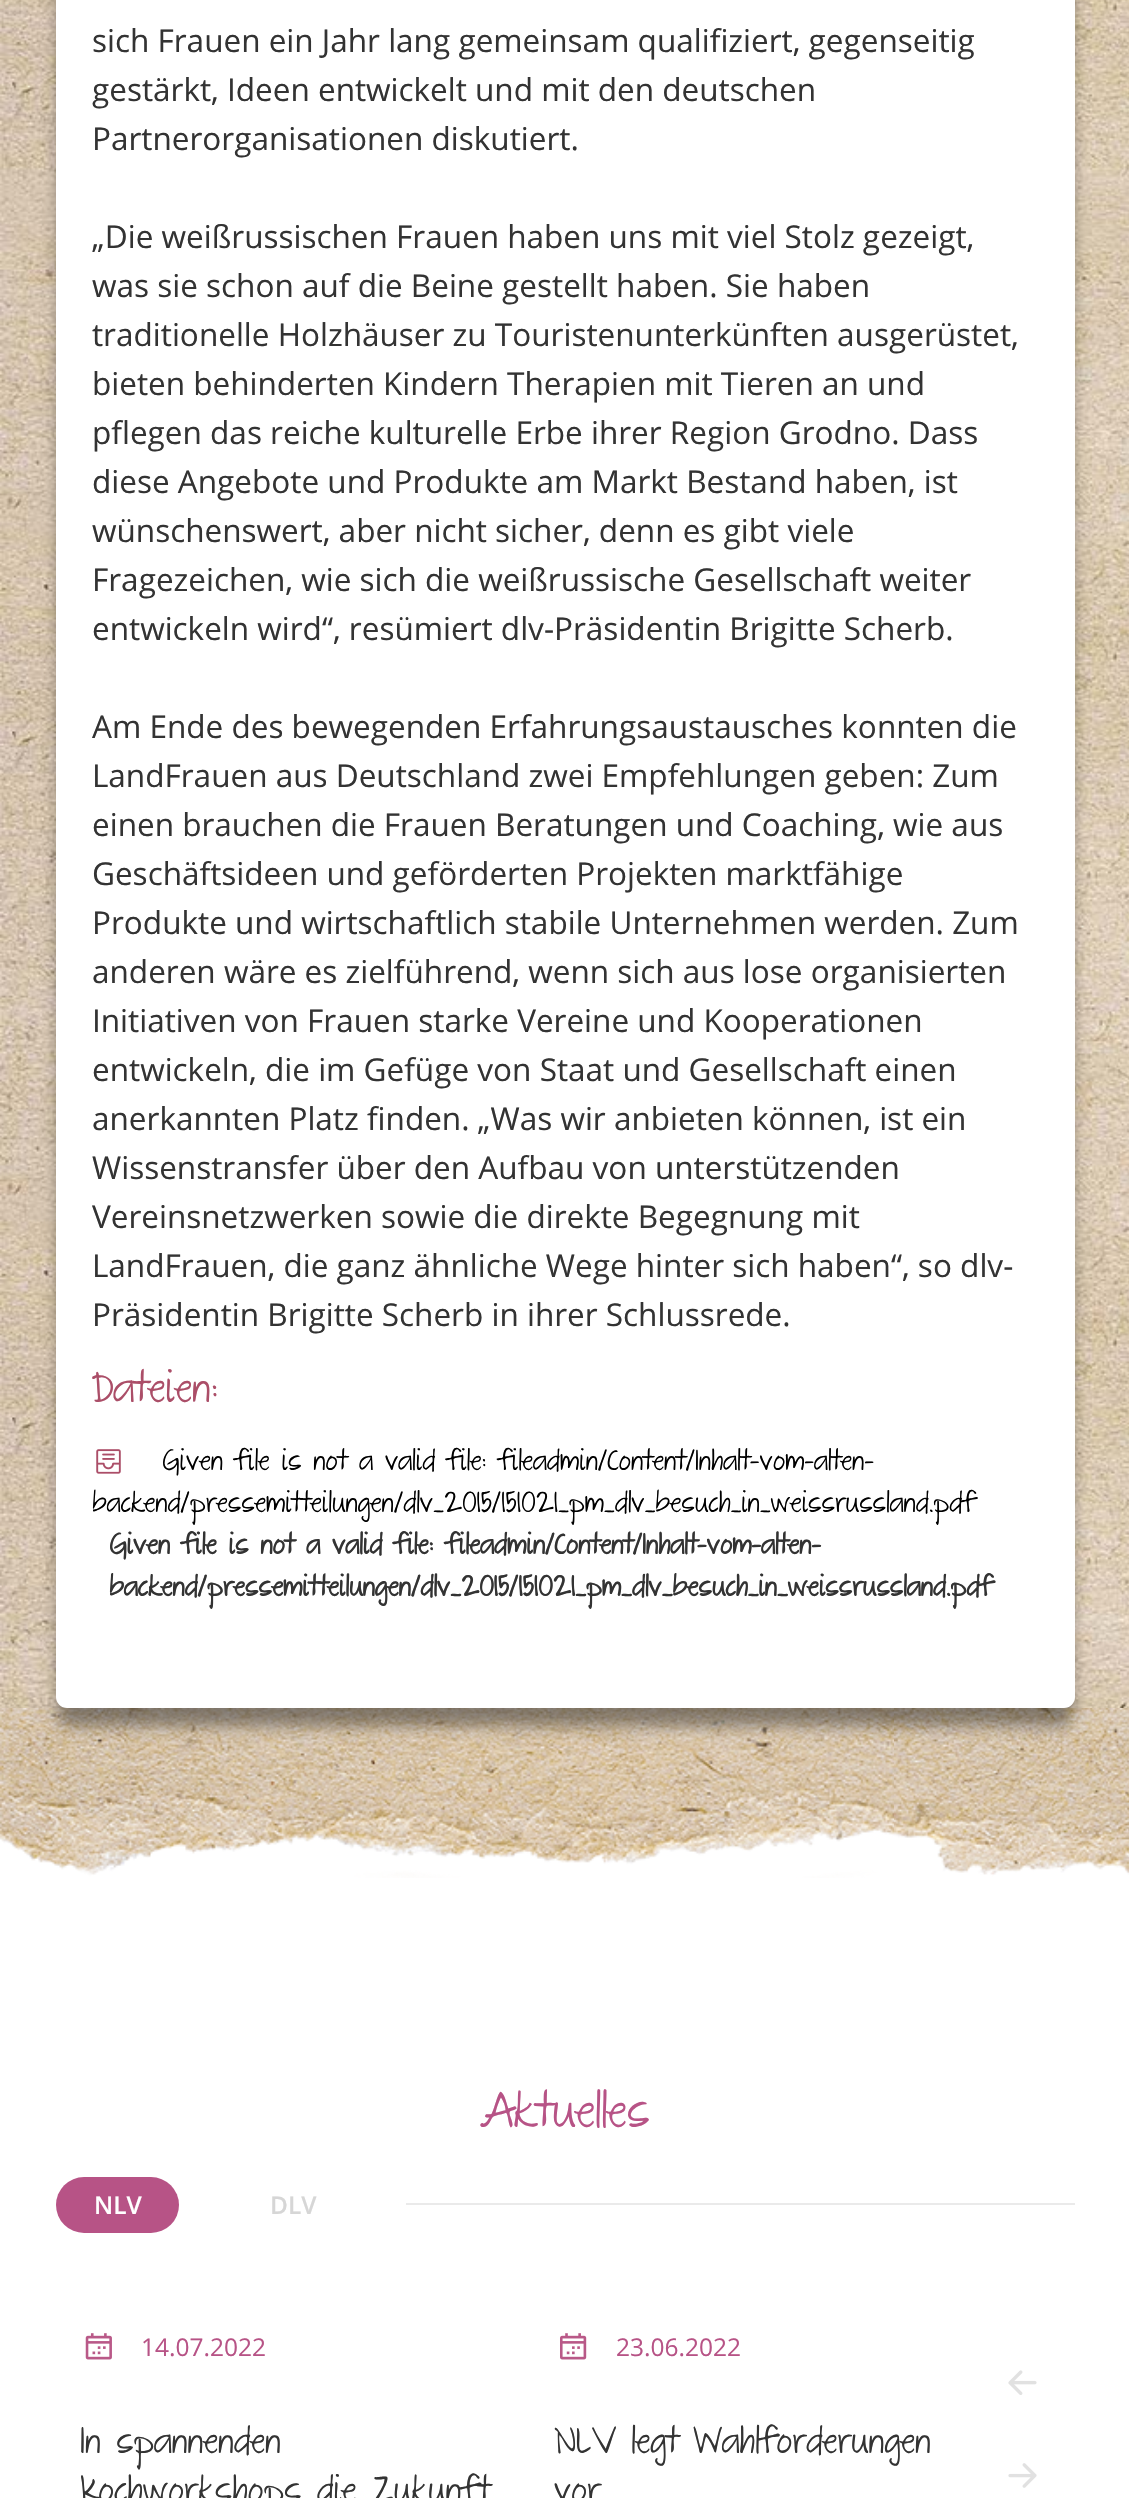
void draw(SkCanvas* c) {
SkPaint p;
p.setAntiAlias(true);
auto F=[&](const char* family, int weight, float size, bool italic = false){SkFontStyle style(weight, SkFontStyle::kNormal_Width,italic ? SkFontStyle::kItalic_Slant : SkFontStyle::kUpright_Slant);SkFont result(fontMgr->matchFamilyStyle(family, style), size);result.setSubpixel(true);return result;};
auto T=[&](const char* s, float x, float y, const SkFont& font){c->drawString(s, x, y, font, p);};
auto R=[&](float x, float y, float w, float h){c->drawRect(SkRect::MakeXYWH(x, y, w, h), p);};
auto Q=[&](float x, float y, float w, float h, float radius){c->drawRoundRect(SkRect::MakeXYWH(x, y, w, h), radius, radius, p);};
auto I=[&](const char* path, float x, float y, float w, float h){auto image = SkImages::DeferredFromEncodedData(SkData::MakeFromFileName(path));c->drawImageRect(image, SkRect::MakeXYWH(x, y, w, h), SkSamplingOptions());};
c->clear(0xffffffff);
I("1.png",0,0,1129,1708);
I("3.png",0,1708,1129,170);
p.setColor(0x66000000);
p.setMaskFilter(SkMaskFilter::MakeBlur(kNormal_SkBlurStyle, 8));
c->drawRoundRect(SkRect::MakeXYWH(58,-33,1015,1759),9,9,p);
p.setMaskFilter(nullptr);
p.setColor(0xffffffff);
Q(56,-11,1019,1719,11);
auto f1 = F("Open Sans",400,31.5);
p.setColor(0xff333333);
T("sich Frauen ein Jahr lang gemeinsam qualifiziert, gegenseitig",92,52,f1);
T("gestärkt, Ideen entwickelt und mit den deutschen",92,101,f1);
T("Partnerorganisationen diskutiert.",92,150,f1);
T("„Die weißrussischen Frauen haben uns mit viel Stolz gezeigt,",92,248,f1);
T("was sie schon auf die Beine gestellt haben. Sie haben",92,297,f1);
T("traditionelle Holzhäuser zu Touristenunterkünften ausgerüstet,",92,346,f1);
T("bieten behinderten Kindern Therapien mit Tieren an und",92,395,f1);
T("pflegen das reiche kulturelle Erbe ihrer Region Grodno. Dass",92,444,f1);
T("diese Angebote und Produkte am Markt Bestand haben, ist",92,493,f1);
T("wünschenswert, aber nicht sicher, denn es gibt viele",92,542,f1);
T("Fragezeichen, wie sich die weißrussische Gesellschaft weiter",92,591,f1);
T("entwickeln wird“, resümiert dlv-Präsidentin Brigitte Scherb.",92,640,f1);
T("Am Ende des bewegenden Erfahrungsaustausches konnten die",92,738,f1);
T("LandFrauen aus Deutschland zwei Empfehlungen geben: Zum",92,787,f1);
T("einen brauchen die Frauen Beratungen und Coaching, wie aus",92,836,f1);
T("Geschäftsideen und geförderten Projekten marktfähige",92,885,f1);
T("Produkte und wirtschaftlich stabile Unternehmen werden. Zum",92,934,f1);
T("anderen wäre es zielführend, wenn sich aus lose organisierten",92,983,f1);
T("Initiativen von Frauen starke Vereine und Kooperationen",92,1032,f1);
T("entwickeln, die im Gefüge von Staat und Gesellschaft einen",92,1081,f1);
T("anerkannten Platz finden. „Was wir anbieten können, ist ein",92,1130,f1);
T("Wissenstransfer über den Aufbau von unterstützenden",92,1179,f1);
T("Vereinsnetzwerken sowie die direkte Begegnung mit",92,1228,f1);
T("LandFrauen, die ganz ähnliche Wege hinter sich haben“, so dlv-",92,1277,f1);
T("Präsidentin Brigitte Scherb in ihrer Schlussrede.",92,1326,f1);
auto f2 = F("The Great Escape",400,37);
p.setColor(0xffab4e68);
T("Dateien:",92,1402,f2);
I("2.png",96,1449,25,25);
auto f3 = F("The Great Escape",400,24.5);
p.setColor(0xff000000);
T("Given file is not a valid file: fileadmin/Content/Inhalt-vom-alten-",162,1470,f3);
T("backend/pressemitteilungen/dlv_2015/151021_pm_dlv_besuch_in_weissrussland.pdf",92,1512,f3);
auto f4 = F("The Great Escape",700,24.5);
p.setColor(0xff333333);
T("Given file is not a valid file: fileadmin/Content/Inhalt-vom-alten-",109,1554,f4);
T("backend/pressemitteilungen/dlv_2015/151021_pm_dlv_besuch_in_weissrussland.pdf",109,1596,f4);
auto f5 = F("The Great Escape",400,42);
p.setColor(0xffb75386);
T("Aktuelles",480,2127,f5);
Q(56,2177,123,56,28);
auto f6 = F("Open Sans",600,24.5);
p.setColor(0xffffffff);
T("NLV",94,2214,f6);
p.setColor(0xffd6d6d6);
T("DLV",270,2214,f6);
p.setColor(0xffeaeaea);
R(406,2203,669,2);
I("4.png",85,2333,27,27);
auto f7 = F("Open Sans",400,24.5);
p.setColor(0xffb75386);
T("14.07.2022",141,2356,f7);
auto f8 = F("The Great Escape",400,31.5);
p.setColor(0xff333333);
T("In spannenden",80,2453,f8);
T("Kochworkshops die Zukunft",80,2502,f8);
I("5.png",560,2333,27,27);
p.setColor(0xffb75386);
T("23.06.2022",616,2356,f7);
p.setColor(0xff333333);
T("NLV legt Wahlforderungen",554,2453,f8);
T("vor",554,2502,f8);
I("6.png",1008,2370,29,25);
I("7.png",1008,2463,29,25);
}
